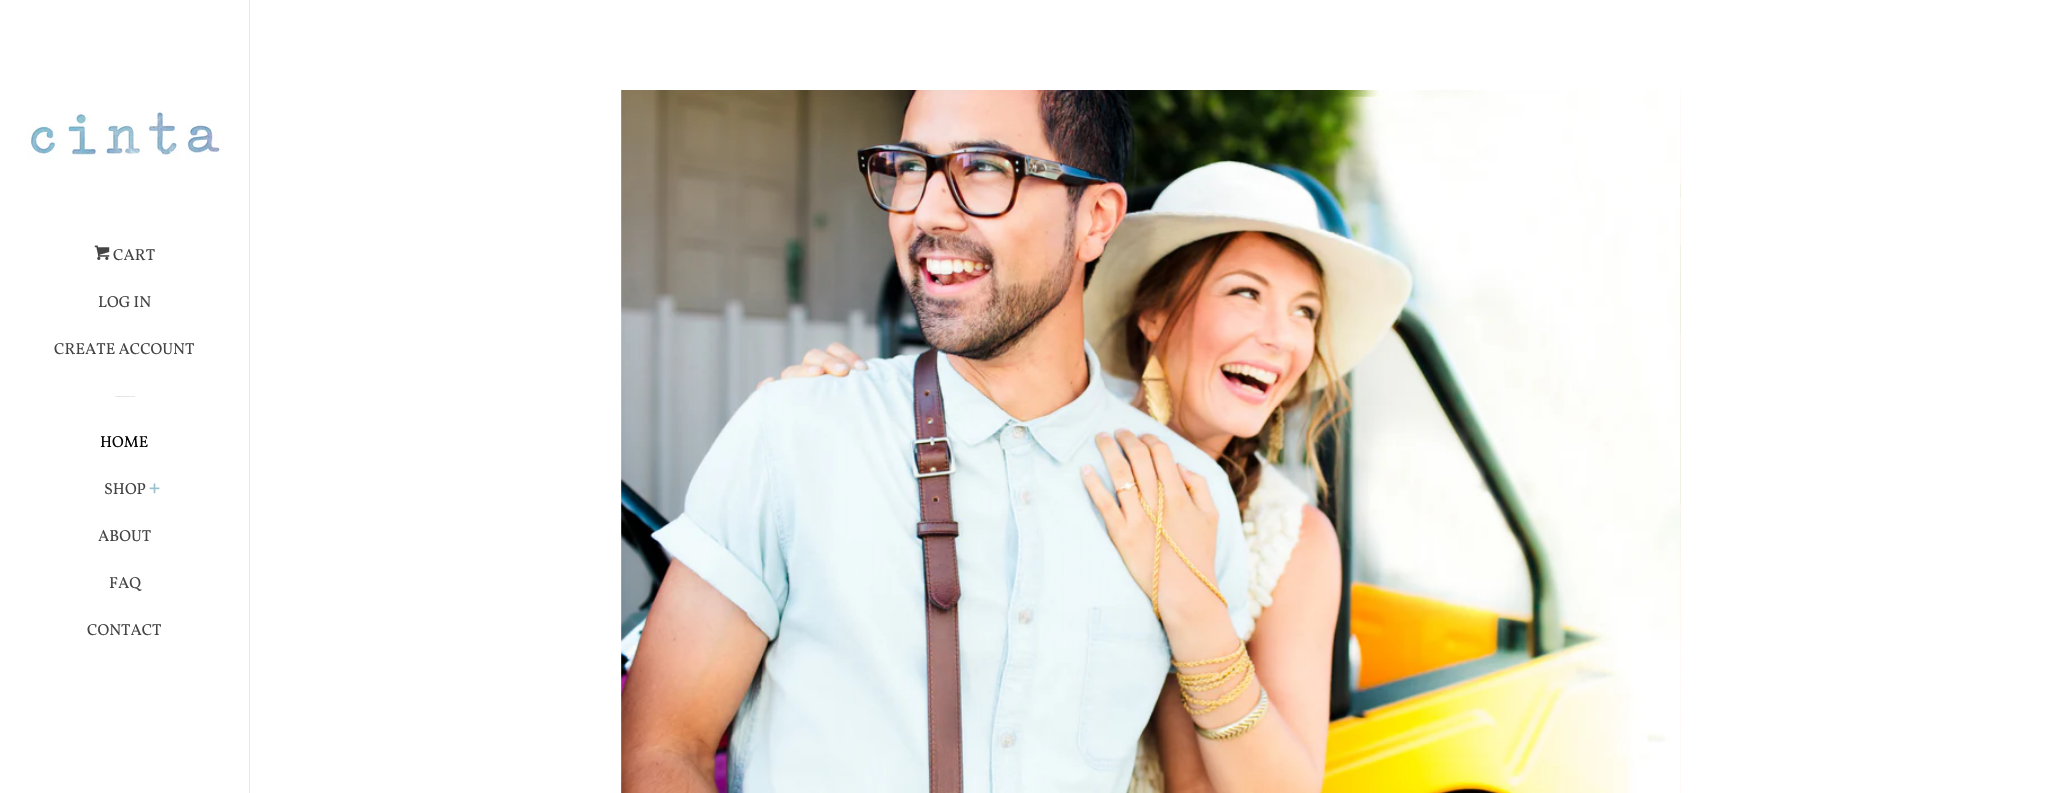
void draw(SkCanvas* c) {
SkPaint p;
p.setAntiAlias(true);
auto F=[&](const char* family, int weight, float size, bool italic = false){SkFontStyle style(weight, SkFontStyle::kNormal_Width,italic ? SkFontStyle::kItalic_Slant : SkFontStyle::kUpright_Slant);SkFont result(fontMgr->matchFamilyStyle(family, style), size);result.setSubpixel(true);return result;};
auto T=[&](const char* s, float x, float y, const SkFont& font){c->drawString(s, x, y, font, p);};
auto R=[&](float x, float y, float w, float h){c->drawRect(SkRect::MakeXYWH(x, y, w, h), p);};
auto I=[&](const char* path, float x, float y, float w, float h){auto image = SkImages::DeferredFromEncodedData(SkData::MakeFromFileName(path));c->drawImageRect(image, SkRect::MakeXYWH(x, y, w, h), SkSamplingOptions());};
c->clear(0xffffffff);
p.setColor(0xffe7e7e7);
R(249,0,1,793);
I("1.png",27,111,194,48);
I("2.png",94,245,16,15);
auto f1 = F("Vollkorn",400,16);
p.setColor(0xff444444);
T("CART",113,260,f1);
T("LOG IN",98,307,f1);
T("CREATE ACCOUNT",54,354,f1);
p.setColor(0xffe6e6e6);
R(115,396,20,1);
p.setColor(0xff040404);
T("HOME",100,447,f1);
p.setColor(0xff444444);
T("SHOP",104,494,f1);
I("3.png",149,483,11,11);
T("ABOUT",98,541,f1);
T("FAQ",109,588,f1);
T("CONTACT",87,635,f1);
I("4.png",621,90,1060,703);
I("5.png",1680,90,1,703);
}
